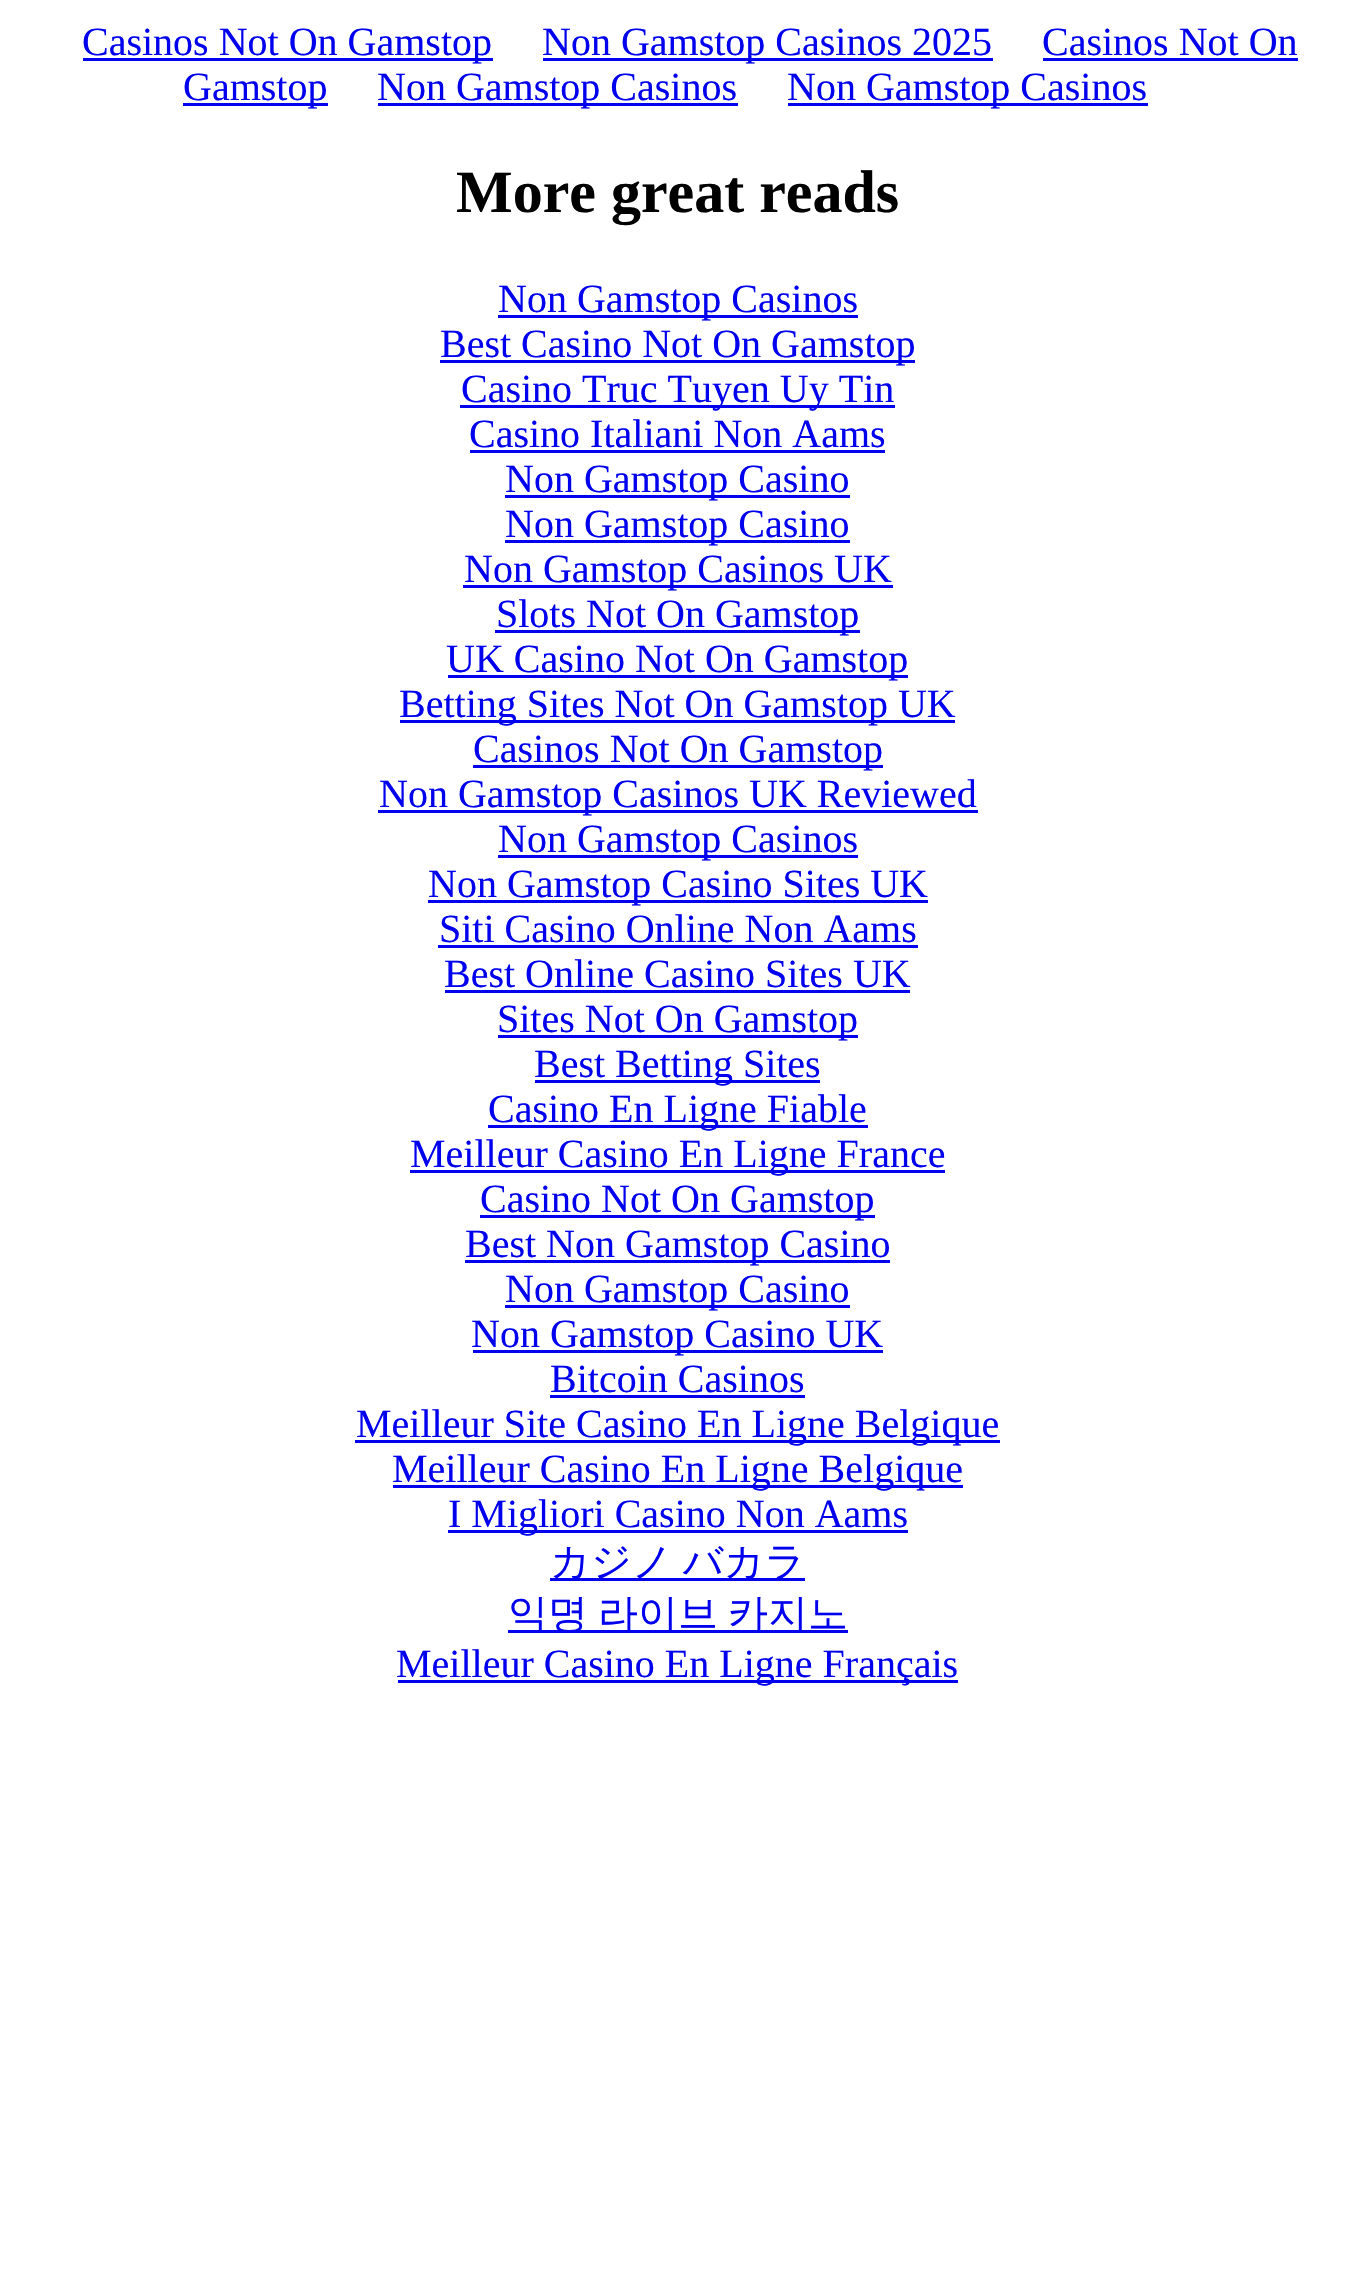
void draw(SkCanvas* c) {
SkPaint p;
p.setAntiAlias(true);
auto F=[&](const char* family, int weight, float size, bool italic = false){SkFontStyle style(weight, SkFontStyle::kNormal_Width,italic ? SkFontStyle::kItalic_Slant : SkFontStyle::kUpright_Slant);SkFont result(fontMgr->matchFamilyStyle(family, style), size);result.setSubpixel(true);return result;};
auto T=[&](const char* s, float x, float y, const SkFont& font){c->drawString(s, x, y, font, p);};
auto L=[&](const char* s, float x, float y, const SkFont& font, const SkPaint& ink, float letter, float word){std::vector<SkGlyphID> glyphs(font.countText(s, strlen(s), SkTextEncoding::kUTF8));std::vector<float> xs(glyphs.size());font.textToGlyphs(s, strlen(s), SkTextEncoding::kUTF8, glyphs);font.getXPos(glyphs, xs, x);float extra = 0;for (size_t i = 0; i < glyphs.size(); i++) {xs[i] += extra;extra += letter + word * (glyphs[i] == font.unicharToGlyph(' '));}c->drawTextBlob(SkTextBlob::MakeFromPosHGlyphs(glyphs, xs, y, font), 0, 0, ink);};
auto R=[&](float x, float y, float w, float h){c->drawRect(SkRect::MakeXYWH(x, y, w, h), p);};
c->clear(0xffffffff);
p.setColor(0xff0000ee);
R(83,58,410,3);
auto f1 = F("Liberation Serif",400,40);
T("Casinos Not On Gamstop",82,55,f1);
R(543,58,450,3);
T("Non Gamstop Casinos 2025",542,55,f1);
T("Casinos Not On",1042,55,f1);
R(1043,58,255,3);
R(183,103,145,3);
T("Gamstop",183,100,f1);
R(378,103,360,3);
T("Non Gamstop Casinos",377,100,f1);
R(788,103,360,3);
T("Non Gamstop Casinos",787,100,f1);
auto f2 = F("Liberation Serif",700,60);
p.setColor(0xff000000);
T("More great reads",456,212,f2);
p.setColor(0xff0000ee);
R(498,315,360,3);
T("Non Gamstop Casinos",498,312,f1);
R(440,360,475,3);
T("Best Casino Not On Gamstop",440,357,f1);
R(460,405,435,3);
T("Casino Truc Tuyen Uy Tin",461,402,f1);
T("Casino Italiani Non Aams",469,447,f1);
R(470,450,415,3);
R(505,495,345,3);
T("Non Gamstop Casino",505,492,f1);
R(505,540,345,3);
T("Non Gamstop Casino",505,537,f1);
R(463,585,430,3);
T("Non Gamstop Casinos UK",464,582,f1);
R(495,630,365,3);
T("Slots Not On Gamstop",496,627,f1);
R(448,675,460,3);
T("UK Casino Not On Gamstop",446,672,f1);
R(400,720,555,3);
T("Betting Sites Not On Gamstop UK",399,717,f1);
R(473,765,410,3);
T("Casinos Not On Gamstop",473,762,f1);
R(378,810,600,3);
T("Non Gamstop Casinos UK Reviewed",379,807,f1);
R(498,855,360,3);
T("Non Gamstop Casinos",498,852,f1);
R(428,900,500,3);
T("Non Gamstop Casino Sites UK",428,897,f1);
T("Siti Casino Online Non Aams",439,942,f1);
R(438,945,480,3);
T("Best Online Casino Sites UK",444,987,f1);
R(445,990,465,3);
R(498,1035,360,3);
T("Sites Not On Gamstop",497,1032,f1);
R(535,1080,285,3);
T("Best Betting Sites",534,1077,f1);
R(488,1125,380,3);
T("Casino En Ligne Fiable",488,1122,f1);
R(410,1170,535,3);
T("Meilleur Casino En Ligne France",410,1167,f1);
R(480,1215,395,3);
T("Casino Not On Gamstop",480,1212,f1);
R(465,1260,425,3);
T("Best Non Gamstop Casino",465,1257,f1);
R(505,1305,345,3);
T("Non Gamstop Casino",505,1302,f1);
R(473,1350,410,3);
T("Non Gamstop Casino UK",471,1347,f1);
T("Bitcoin Casinos",550,1392,f1);
R(550,1395,255,3);
R(355,1440,645,3);
T("Meilleur Site Casino En Ligne Belgique",356,1437,f1);
R(393,1485,570,3);
T("Meilleur Casino En Ligne Belgique",392,1482,f1);
R(448,1530,460,3);
T("I Migliori Casino Non Aams",448,1527,f1);
R(550,1578,255,3);
auto f3 = F("WenQuanYi Zen Hei",500,40);
L("カジノ バカラ",550,1575,f3,p,0,-2);
R(508,1630,340,3);
L("익명 라이브 카지노",508,1627,f3,p,0,-2);
R(398,1680,560,3);
T("Meilleur Casino En Ligne Français",396,1677,f1);
}
